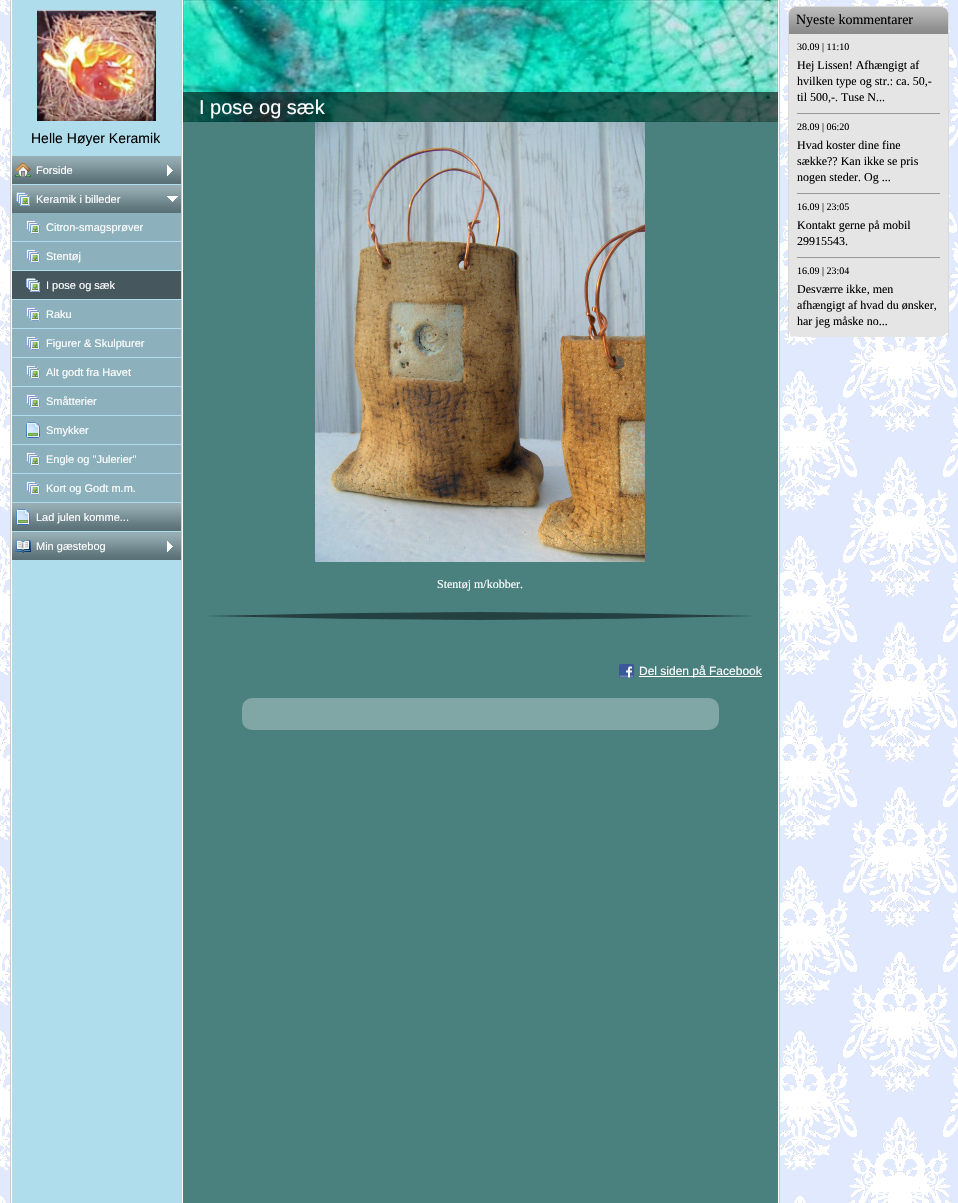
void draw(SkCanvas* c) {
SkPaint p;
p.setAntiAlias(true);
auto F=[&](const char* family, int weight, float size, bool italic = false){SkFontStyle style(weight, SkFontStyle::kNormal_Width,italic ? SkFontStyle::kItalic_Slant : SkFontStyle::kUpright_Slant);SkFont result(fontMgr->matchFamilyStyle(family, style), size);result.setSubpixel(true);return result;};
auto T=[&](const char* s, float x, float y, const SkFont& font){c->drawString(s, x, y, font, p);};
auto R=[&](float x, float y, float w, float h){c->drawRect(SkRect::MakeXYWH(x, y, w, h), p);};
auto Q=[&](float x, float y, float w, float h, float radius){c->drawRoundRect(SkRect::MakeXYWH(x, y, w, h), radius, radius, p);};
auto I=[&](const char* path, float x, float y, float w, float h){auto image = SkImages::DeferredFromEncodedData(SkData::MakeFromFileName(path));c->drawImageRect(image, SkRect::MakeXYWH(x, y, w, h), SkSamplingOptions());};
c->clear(0xffffffff);
I("1.png",0,0,958,1203);
p.setColor(0xffffffff);
R(11,0,768,1203);
p.setColor(0xffcccccc);
R(10,0,1,1203);
p.setColor(0xffb0ddeb);
R(12,0,169,1203);
I("2.png",37,10,119,111);
auto f1 = F("Liberation Sans",400,14);
p.setColor(0xff000000);
T("Helle Høyer Keramik",31,143,f1);
I("3.png",12,156,169,28);
I("4.png",15,163,16,14);
I("5.png",167,165,6,11);
auto f2 = F("Liberation Sans",400,11);
p.setColor(0xffffffff);
T("Forside",36,174,f2);
I("3.png",12,185,169,28);
I("6.png",16,192,14,14);
I("7.png",167,196,11,6);
T("Keramik i billeder",36,203,f2);
p.setColor(0xff8db1bc);
R(12,213,169,28);
I("8.png",26,220,14,14);
p.setColor(0xffffffff);
T("Citron-smagsprøver",46,231,f2);
p.setColor(0xff8db1bc);
R(12,242,169,28);
I("8.png",26,249,14,14);
p.setColor(0xffffffff);
T("Stentøj",46,260,f2);
p.setColor(0xff46585e);
R(12,271,169,28);
I("9.png",26,278,14,14);
p.setColor(0xffffffff);
T("I pose og sæk",46,289,f2);
p.setColor(0xff8db1bc);
R(12,300,169,28);
I("8.png",26,307,14,14);
p.setColor(0xffffffff);
T("Raku",46,318,f2);
p.setColor(0xff8db1bc);
R(12,329,169,28);
I("8.png",26,336,14,14);
p.setColor(0xffffffff);
T("Figurer & Skulpturer",46,347,f2);
p.setColor(0xff8db1bc);
R(12,358,169,28);
I("8.png",26,365,14,14);
p.setColor(0xffffffff);
T("Alt godt fra Havet",46,376,f2);
p.setColor(0xff8db1bc);
R(12,387,169,28);
I("8.png",26,394,14,14);
p.setColor(0xffffffff);
T("Småtterier",46,405,f2);
p.setColor(0xff8db1bc);
R(12,416,169,28);
I("10.png",26,422,14,16);
p.setColor(0xffffffff);
T("Smykker",46,434,f2);
p.setColor(0xff8db1bc);
R(12,445,169,28);
I("8.png",26,452,14,14);
p.setColor(0xffffffff);
T("Engle og \"Julerier\"",46,463,f2);
p.setColor(0xff8db1bc);
R(12,474,169,28);
I("8.png",26,481,14,14);
p.setColor(0xffffffff);
T("Kort og Godt m.m.",46,492,f2);
I("3.png",12,503,169,28);
I("11.png",16,509,14,16);
T("Lad julen komme...",36,521,f2);
I("3.png",12,532,169,28);
I("12.png",15,540,16,13);
I("5.png",167,541,6,11);
T("Min gæstebog",36,550,f2);
p.setColor(0xffcccccc);
R(181,0,1,1203);
p.setColor(0xff4a817f);
R(183,122,595,1081);
I("13.png",183,0,595,122);
p.setColor(0x99000000);
R(183,92,595,30);
auto f3 = F("Liberation Sans",400,20);
p.setColor(0xffffffff);
T("I pose og sæk",199,114,f3);
I("14.png",315,122,330,440);
auto f4 = F("Liberation Serif",400,12);
T("Stentøj m/kobber.",437,588,f4);
I("15.png",207,612,546,8);
I("16.png",619,664,15,14);
R(639,676,123,1);
auto f5 = F("Liberation Sans",400,12);
T("Del siden på Facebook",639,675,f5);
p.setColor(0xff80a7a5);
Q(242,698,477,32,10);
p.setColor(0xffcccccc);
R(779,0,1,1203);
p.setColor(0xffe5e5e5);
Q(788,6,161,331,10);
I("17.png",788,6,161,28);
auto f6 = F("Liberation Serif",400,14);
p.setColor(0xff000000);
T("Nyeste kommentarer",796,24,f6);
p.setColor(0xffdadada);
R(948,34,1,303);
R(788,34,1,303);
auto f7 = F("Liberation Serif",400,10);
p.setColor(0xff000000);
T("30.09 | 11:10",797,50,f7);
T("Hej Lissen! Afhængigt af",797,69,f4);
T("hvilken type og str.: ca. 50,-",797,85,f4);
T("til 500,-. Tuse N...",797,101,f4);
I("18.png",797,113,143,1);
T("28.09 | 06:20",797,130,f7);
T("Hvad koster dine fine",797,149,f4);
T("sække?\077 Kan ikke se pris",797,165,f4);
T("nogen steder. Og ...",797,181,f4);
I("18.png",797,193,143,1);
T("16.09 | 23:05",797,210,f7);
T("Kontakt gerne på mobil",797,229,f4);
T("29915543.",797,245,f4);
I("18.png",797,257,143,1);
T("16.09 | 23:04",797,274,f7);
T("Desværre ikke, men",797,293,f4);
T("afhængigt af hvad du ønsker,",797,309,f4);
T("har jeg måske no...",797,325,f4);
}
